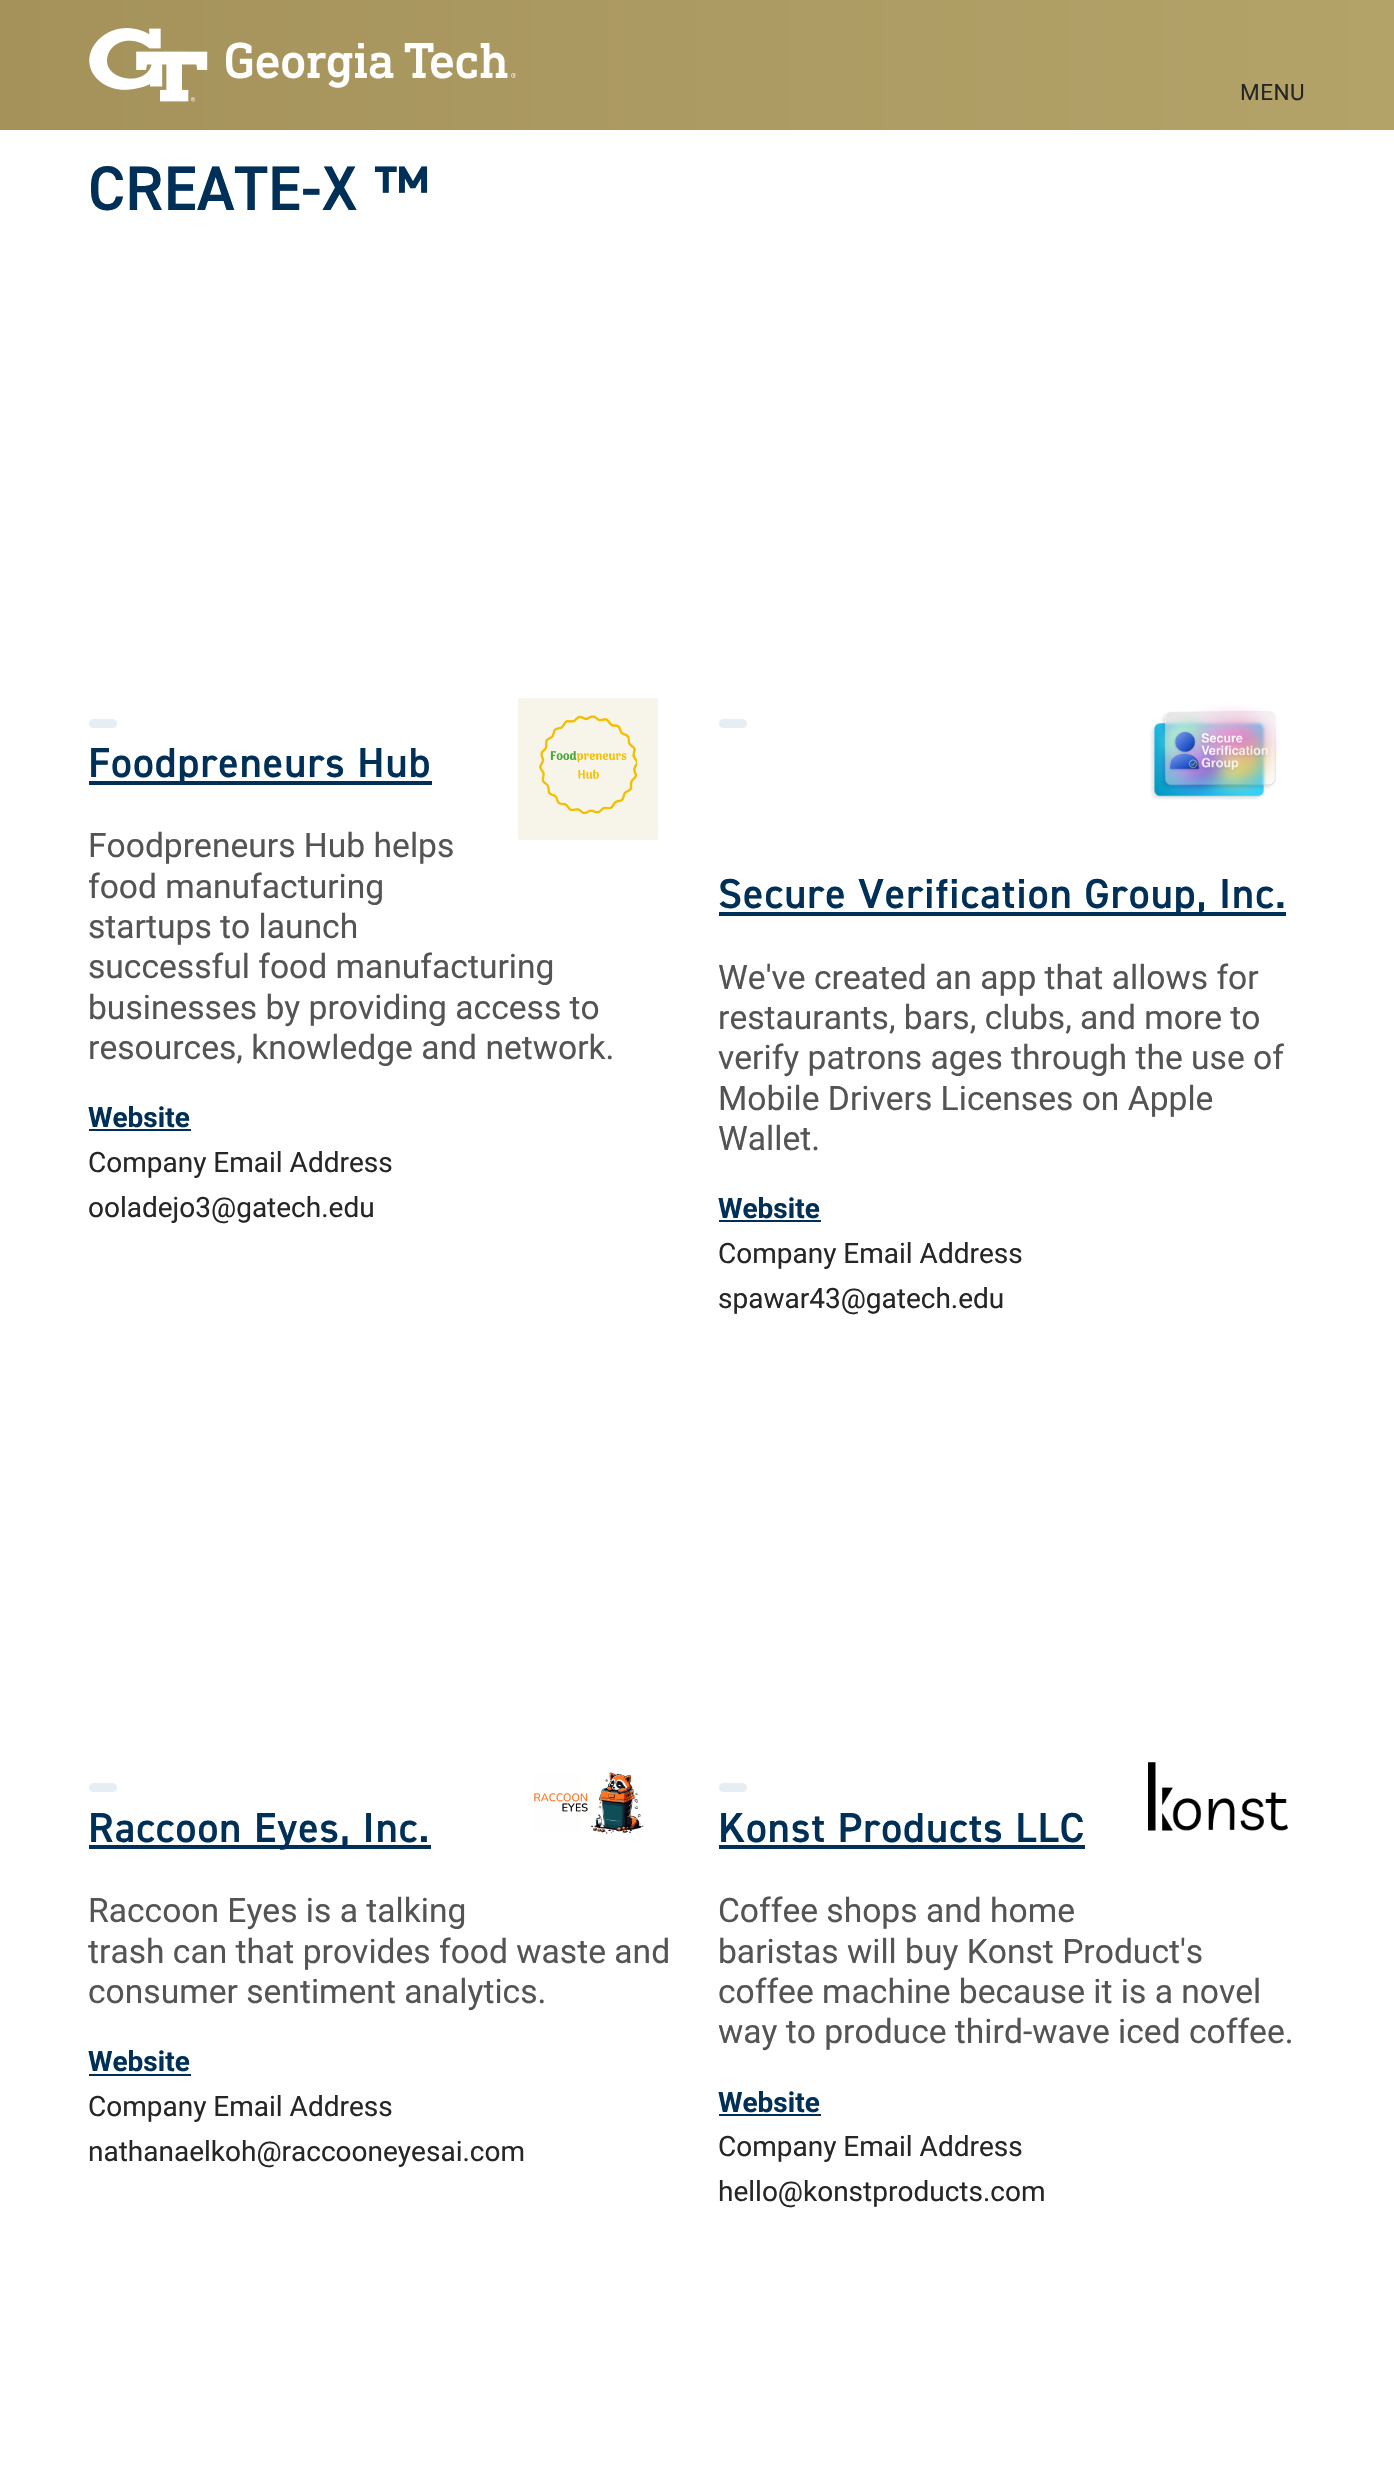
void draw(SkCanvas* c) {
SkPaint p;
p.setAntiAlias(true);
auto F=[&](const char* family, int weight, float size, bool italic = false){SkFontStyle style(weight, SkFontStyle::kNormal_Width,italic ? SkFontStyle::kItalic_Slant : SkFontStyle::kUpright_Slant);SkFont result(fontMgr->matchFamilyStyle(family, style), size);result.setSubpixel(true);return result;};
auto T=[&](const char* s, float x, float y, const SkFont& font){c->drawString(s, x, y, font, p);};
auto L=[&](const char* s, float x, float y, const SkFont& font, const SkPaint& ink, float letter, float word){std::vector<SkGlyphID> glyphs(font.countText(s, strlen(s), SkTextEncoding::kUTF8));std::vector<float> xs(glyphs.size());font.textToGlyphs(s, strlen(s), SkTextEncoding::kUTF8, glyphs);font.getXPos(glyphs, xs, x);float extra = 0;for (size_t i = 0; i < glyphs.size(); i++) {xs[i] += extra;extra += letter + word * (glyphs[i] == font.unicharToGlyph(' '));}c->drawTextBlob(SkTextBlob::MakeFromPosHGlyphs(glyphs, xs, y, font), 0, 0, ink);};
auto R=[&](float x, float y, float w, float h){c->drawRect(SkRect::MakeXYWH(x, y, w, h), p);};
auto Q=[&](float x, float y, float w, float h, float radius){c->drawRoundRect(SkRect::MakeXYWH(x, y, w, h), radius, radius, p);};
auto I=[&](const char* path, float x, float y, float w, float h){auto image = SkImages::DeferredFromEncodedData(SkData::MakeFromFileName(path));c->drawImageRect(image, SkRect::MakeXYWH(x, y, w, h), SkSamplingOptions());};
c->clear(0xffffffff);
{
const SkColor colors[] = {0xffa4925a,0xffb3a369};
const float stops[] = {0,1};
const SkPoint ends[] = {{0,65}, {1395,65}};
p.setShader(SkGradientShader::MakeLinear(ends, colors, stops, 2, SkTileMode::kClamp));
p.setAlpha(255);
}
R(0,0,1394,130);
I("1.png",89,28,427,74);
auto f1 = F("Roboto",400,22.5);
p.setShader(nullptr);
p.setColor(0xff262626);
L("MENU",1240,100,f1,p,.5,0);
auto f2 = F("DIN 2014",600,63);
p.setColor(0xff003057);
T("CREATE-X ™",88,210,f2);
p.setColor(0xffe6edf3);
Q(89,719,28,9,4.5);
p.setColor(0xff003057);
R(89,781,343,4);
auto f3 = F("DIN 2014",600,42);
L("Foodpreneurs Hub",88,777,f3,p,1,0);
I("2.png",518,698,140,142);
auto f4 = F("Roboto",400,33.6);
p.setColor(0xff545454);
T("Foodpreneurs Hub helps",88,857,f4);
T("food manufacturing",88,898,f4);
T("startups to launch",88,938,f4);
T("successful food manufacturing",88,978,f4);
T("businesses by providing access to",88,1019,f4);
T("resources, knowledge and network.",88,1059,f4);
auto f5 = F("Roboto",700,28);
p.setColor(0xff003057);
T("Website",88,1127,f5);
R(89,1129,102,2);
auto f6 = F("Roboto",400,28);
p.setColor(0xff262626);
T("Company Email Address",88,1172,f6);
T("ooladejo3@gatech.edu",88,1217,f6);
I("3.png",1150,705,130,95);
p.setColor(0xffe6edf3);
Q(719,719,28,9,4.5);
p.setColor(0xff003057);
R(719,912,567,4);
L("Secure Verification Group, Inc.",718,908,f3,p,1,0);
p.setColor(0xff545454);
T("We've created an app that allows for",718,989,f4);
T("restaurants, bars, clubs, and more to",718,1029,f4);
T("verify patrons ages through the use of",718,1069,f4);
T("Mobile Drivers Licenses on Apple",718,1110,f4);
T("Wallet.",718,1150,f4);
p.setColor(0xff003057);
T("Website",718,1218,f5);
R(719,1220,102,2);
p.setColor(0xff262626);
T("Company Email Address",718,1263,f6);
T("spawar43@gatech.edu",718,1308,f6);
p.setColor(0xffe6edf3);
Q(89,1783,28,9,4.5);
p.setColor(0xff003057);
R(89,1845,342,4);
L("Raccoon Eyes, Inc.",88,1842,f3,p,1,0);
I("4.png",534,1772,110,62);
p.setColor(0xff545454);
T("Raccoon Eyes is a talking",88,1922,f4);
T("trash can that provides food waste and",88,1963,f4);
T("consumer sentiment analytics.",88,2003,f4);
p.setColor(0xff003057);
T("Website",88,2071,f5);
R(89,2074,102,2);
p.setColor(0xff262626);
T("Company Email Address",88,2116,f6);
T("nathanaelkoh@raccooneyesai.com",88,2161,f6);
p.setColor(0xffe6edf3);
Q(719,1783,28,9,4.5);
p.setColor(0xff003057);
L("Konst Products LLC",718,1842,f3,p,1,0);
R(719,1845,366,4);
I("5.png",1148,1762,140,69);
p.setColor(0xff545454);
T("Coffee shops and home",718,1922,f4);
T("baristas will buy Konst Product's",718,1963,f4);
T("coffee machine because it is a novel",718,2003,f4);
T("way to produce third-wave iced coffee.",718,2043,f4);
p.setColor(0xff003057);
T("Website",718,2112,f5);
R(719,2114,102,2);
p.setColor(0xff262626);
T("Company Email Address",718,2156,f6);
T("hello@konstproducts.com",718,2201,f6);
}
